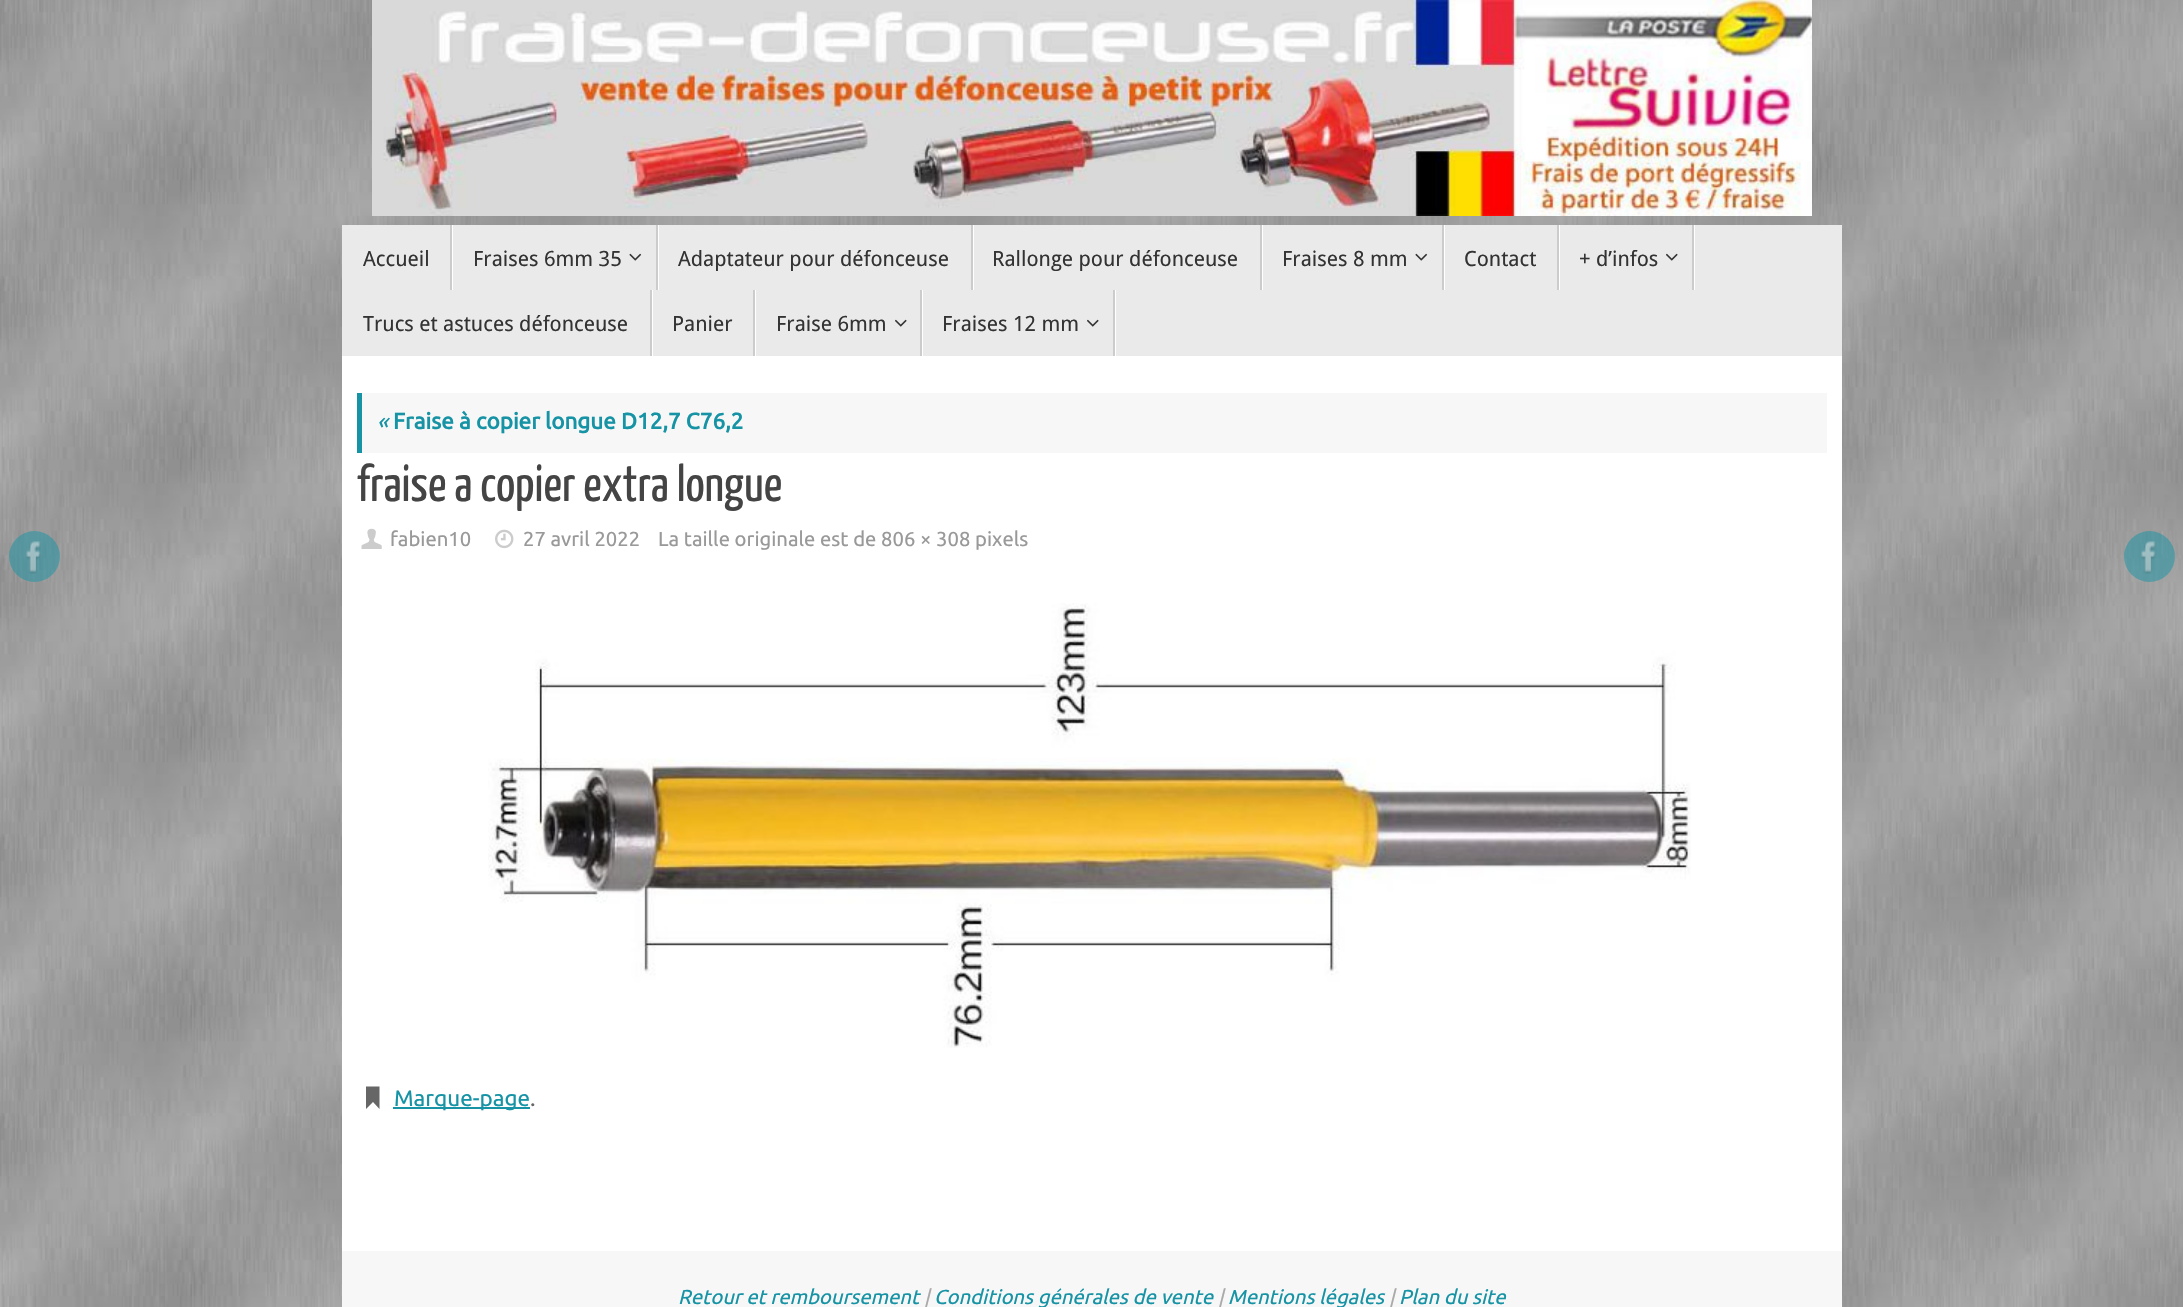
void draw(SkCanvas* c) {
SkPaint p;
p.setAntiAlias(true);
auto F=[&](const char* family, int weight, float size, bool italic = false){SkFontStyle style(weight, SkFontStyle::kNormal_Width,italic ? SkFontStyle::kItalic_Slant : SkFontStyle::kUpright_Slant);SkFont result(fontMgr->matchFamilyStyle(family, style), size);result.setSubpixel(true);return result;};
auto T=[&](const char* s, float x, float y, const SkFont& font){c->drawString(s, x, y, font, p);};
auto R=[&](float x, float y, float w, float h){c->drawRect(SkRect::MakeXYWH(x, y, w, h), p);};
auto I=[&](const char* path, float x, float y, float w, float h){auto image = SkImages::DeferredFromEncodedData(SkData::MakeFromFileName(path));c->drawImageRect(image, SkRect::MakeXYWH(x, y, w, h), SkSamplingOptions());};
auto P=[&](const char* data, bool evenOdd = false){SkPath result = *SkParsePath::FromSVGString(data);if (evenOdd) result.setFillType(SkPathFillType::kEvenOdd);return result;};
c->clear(0xffffffff);
I("1.png",0,0,2183,1307);
I("2.png",372,0,1440,216);
p.setColor(0xffeaeaea);
R(342,225,1500,131);
p.setColor(0xffffffff);
c->drawPath(P("M344 290h109v-65h-1v65z"),p);
p.setColor(0xffcccccc);
R(450,225,2,65);
auto f1 = F("Droid Sans",400,21);
p.setColor(0xff333333);
T("Accueil",363,266,f1);
p.setColor(0xffffffff);
c->drawPath(P("M453 290h206v-65h-2v65z"),p);
p.setColor(0xffcccccc);
R(656,225,2,65);
p.setColor(0xff333333);
T("Fraises 6mm 35",473,266,f1);
I("3.png",629,253,13,8);
p.setColor(0xffffffff);
c->drawPath(P("M659 290h315v-65h-2v65z"),p);
p.setColor(0xffcccccc);
R(971,225,2,65);
p.setColor(0xff333333);
T("Adaptateur pour défonceuse",678,266,f1);
p.setColor(0xffffffff);
c->drawPath(P("M974 290h289v-65h-1v65z"),p);
p.setColor(0xffcccccc);
R(1260,225,2,65);
p.setColor(0xff333333);
T("Rallonge pour défonceuse",992,266,f1);
p.setColor(0xffffffff);
c->drawPath(P("M1263 290h182v-65h-2v65z"),p);
p.setColor(0xffcccccc);
R(1442,225,2,65);
p.setColor(0xff333333);
T("Fraises 8 mm",1282,266,f1);
I("3.png",1415,253,13,8);
p.setColor(0xffffffff);
c->drawPath(P("M1445 290h115v-65h-2v65z"),p);
p.setColor(0xffcccccc);
R(1557,225,2,65);
p.setColor(0xff333333);
T("Contact",1464,266,f1);
p.setColor(0xffffffff);
c->drawPath(P("M1560 290h135v-65h-1v65z"),p);
p.setColor(0xffcccccc);
R(1692,225,2,65);
p.setColor(0xff333333);
T("+ d’infos",1579,266,f1);
I("4.png",1666,253,12,8);
p.setColor(0xffffffff);
c->drawPath(P("M344 356h309v-66h-2v66z"),p);
p.setColor(0xffcccccc);
R(650,290,2,66);
p.setColor(0xff333333);
T("Trucs et astuces défonceuse",363,331,f1);
p.setColor(0xffffffff);
c->drawPath(P("M653 356h103v-66h-2v66z"),p);
p.setColor(0xffcccccc);
R(753,290,2,66);
p.setColor(0xff333333);
T("Panier",672,331,f1);
p.setColor(0xffffffff);
c->drawPath(P("M756 356h167v-66h-2v66z"),p);
p.setColor(0xffcccccc);
R(920,290,2,66);
p.setColor(0xff333333);
T("Fraise 6mm",776,331,f1);
I("4.png",895,319,12,8);
p.setColor(0xffffffff);
c->drawPath(P("M923 356h193v-66h-2v66z"),p);
p.setColor(0xffcccccc);
R(1113,290,2,66);
p.setColor(0xff333333);
T("Fraises 12 mm",942,331,f1);
I("4.png",1087,319,12,8);
p.setColor(0x801693a5);
c->drawCircle(34.5,556.5,25.5,p);
I("5.png",26,541,15,33);
p.setColor(0xffffffff);
R(342,356,1500,895);
p.setColor(0xfff7f7f7);
R(362,393,1465,60);
p.setColor(0xff1693a5);
R(357,393,5,60);
auto f2 = F("Ubuntu",400,22.5,true);
T("«",377,429,f2);
auto f3 = F("Ubuntu",700,22.5);
T("Fraise à copier longue D12,7 C76,2",393,429,f3);
auto f4 = F("Yanone Kaffeesatz",400,51);
p.setColor(0xff444444);
T("fraise a copier extra longue",357,501,f4);
I("6.png",361,528,21,21);
auto f5 = F("Ubuntu",400,20.25);
p.setColor(0xff999999);
T("fabien10",390,546,f5);
I("7.png",495,529,19,20);
T("27 avril 2022",523,546,f5);
T("La taille originale est de 806 × 308 pixels",658,546,f5);
I("8.png",488,603,1203,445);
p.setColor(0xff666666);
c->drawPath(P("M366 1107v-20.5h13.5v22.5l-6.5-7l-7 7z"),p);
p.setColor(0xff1693a5);
R(393,1107,137,2);
auto f6 = F("Ubuntu",400,22.5);
T("Marque-page",394,1106,f6);
p.setColor(0xff666666);
T(".",530,1106,f6);
p.setColor(0xfff7f7f7);
R(342,1251,1500,56);
auto f7 = F("Ubuntu",400,20.25,true);
p.setColor(0xff1693a5);
T("Retour et remboursement",678,1304,f7);
p.setColor(0xffaaaaaa);
T("|",924,1304,f7);
p.setColor(0xff1693a5);
T("Conditions générales de vente",934,1304,f7);
p.setColor(0xffaaaaaa);
T("|",1218,1304,f7);
p.setColor(0xff1693a5);
T("Mentions légales",1228,1304,f7);
p.setColor(0xffaaaaaa);
T("|",1389,1304,f7);
p.setColor(0xff1693a5);
T("Plan du site",1399,1304,f7);
p.setColor(0x801693a5);
c->drawCircle(2149.5,556.5,25.5,p);
I("9.png",2141,541,15,33);
}
